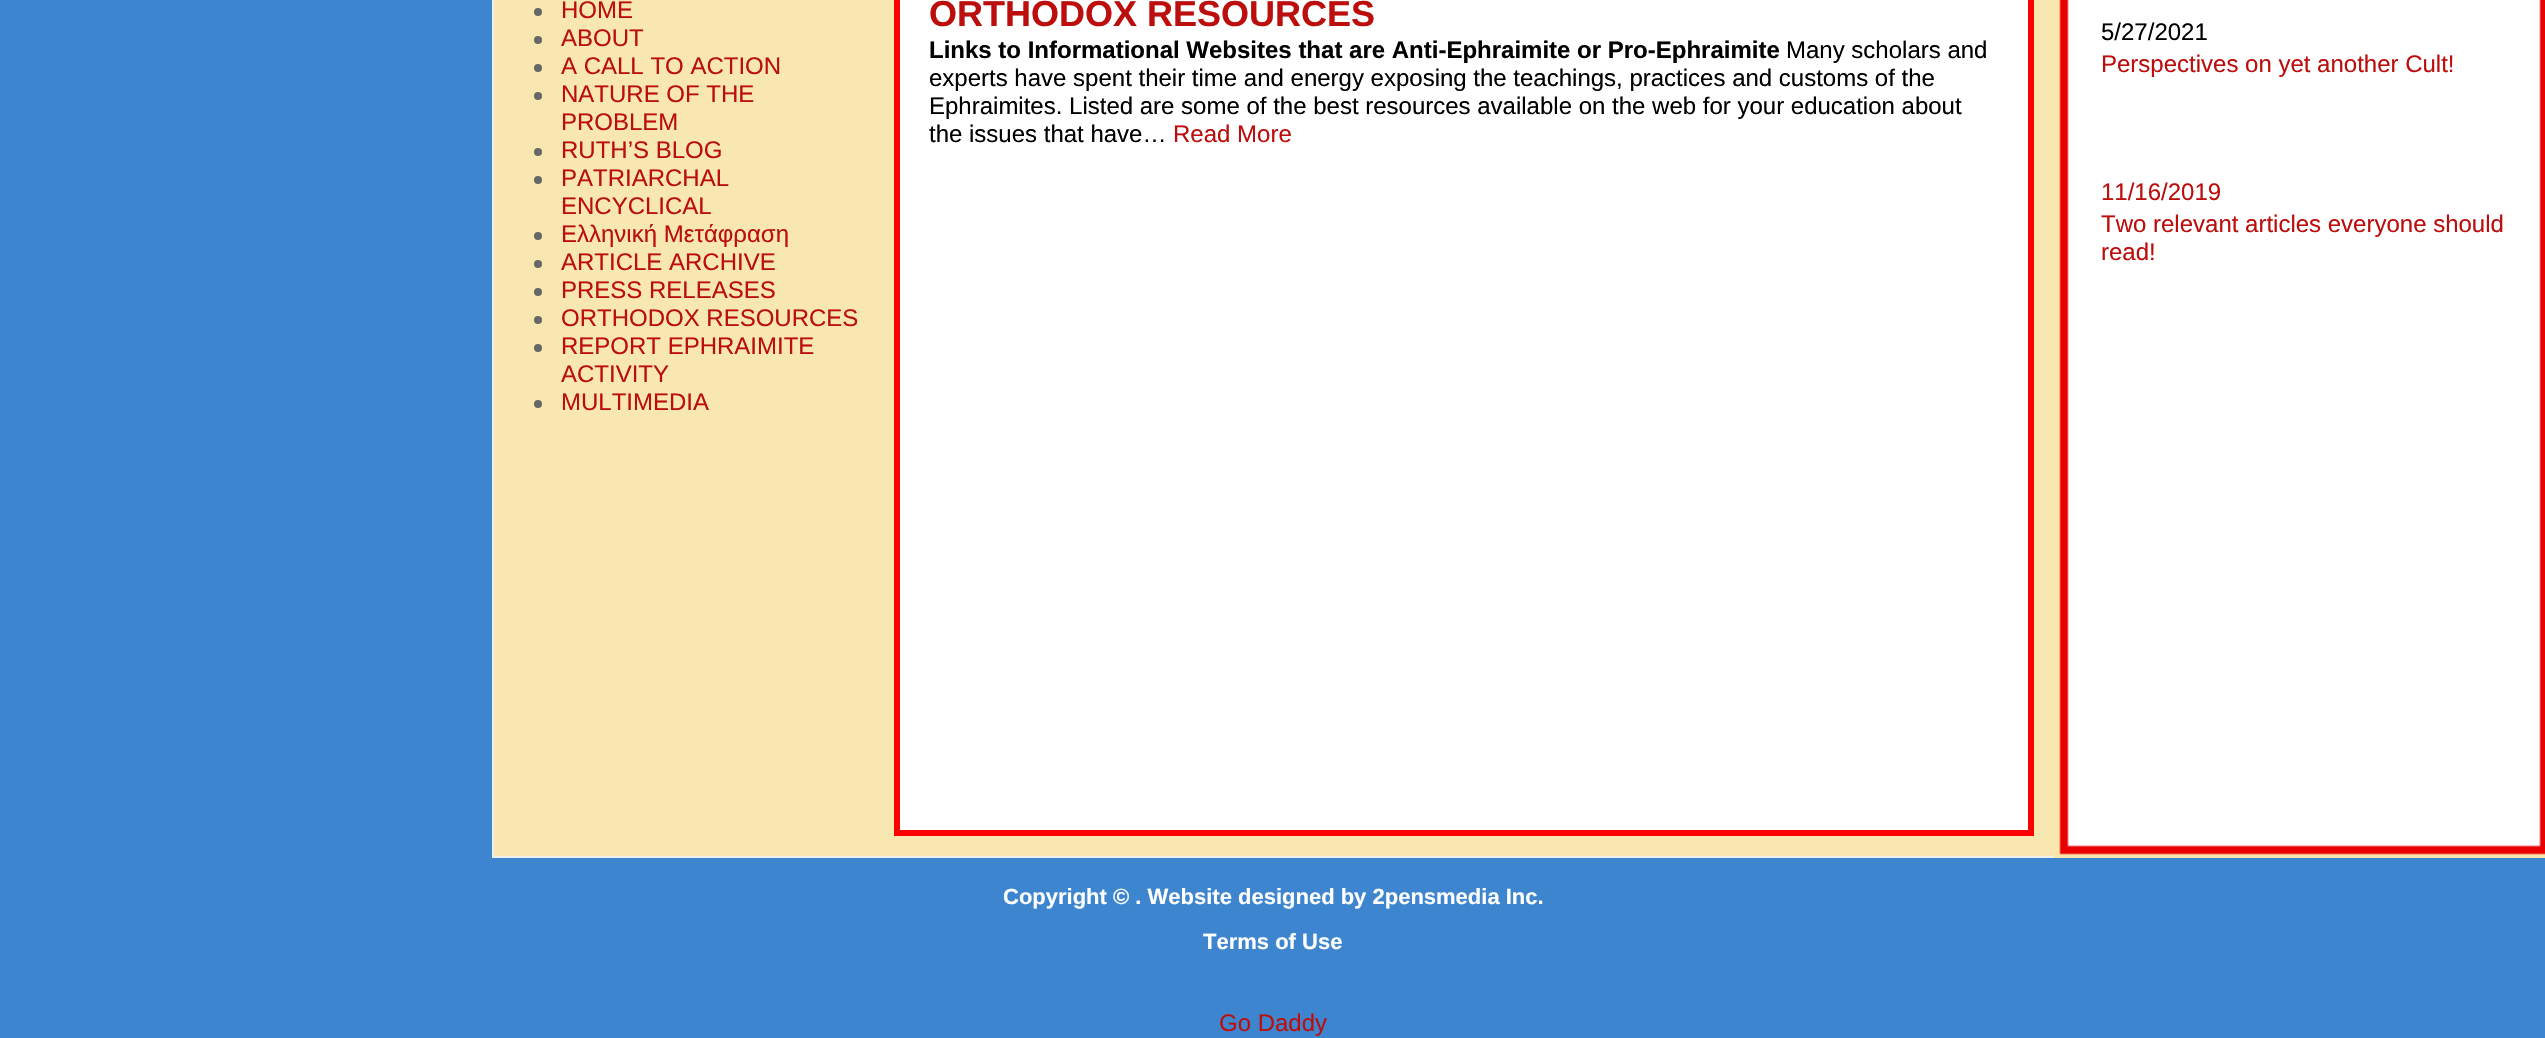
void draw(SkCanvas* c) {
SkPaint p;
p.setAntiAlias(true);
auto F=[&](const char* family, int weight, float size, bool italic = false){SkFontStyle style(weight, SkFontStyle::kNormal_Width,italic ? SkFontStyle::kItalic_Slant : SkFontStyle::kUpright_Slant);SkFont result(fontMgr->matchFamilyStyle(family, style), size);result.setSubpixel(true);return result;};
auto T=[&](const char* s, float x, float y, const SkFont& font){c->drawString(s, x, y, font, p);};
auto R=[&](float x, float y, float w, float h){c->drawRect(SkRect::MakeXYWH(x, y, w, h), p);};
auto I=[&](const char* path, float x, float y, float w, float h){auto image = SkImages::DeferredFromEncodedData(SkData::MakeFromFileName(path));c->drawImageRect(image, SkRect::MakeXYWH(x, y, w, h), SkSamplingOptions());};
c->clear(0xff3d86cf);
p.setColor(0xfff8e7b0);
R(494,0,1560,856);
p.setColor(0xffefefef);
R(492,856,1564,2);
R(492,0,2,858);
p.setColor(0xff666666);
c->drawCircle(538,12,4,p);
auto f1 = F("Liberation Sans",400,24);
p.setColor(0xffbc0e0d);
T("HOME",561,18,f1);
p.setColor(0xff666666);
c->drawCircle(538,40,4,p);
p.setColor(0xffbc0e0d);
T("ABOUT",561,46,f1);
p.setColor(0xff666666);
c->drawCircle(538,68,4,p);
p.setColor(0xffbc0e0d);
T("A CALL TO ACTION",561,74,f1);
p.setColor(0xff666666);
c->drawCircle(538,96,4,p);
p.setColor(0xffbc0e0d);
T("NATURE OF THE",561,102,f1);
T("PROBLEM",561,130,f1);
p.setColor(0xff666666);
c->drawCircle(538,152,4,p);
p.setColor(0xffbc0e0d);
T("RUTH’S BLOG",561,158,f1);
p.setColor(0xff666666);
c->drawCircle(538,180,4,p);
p.setColor(0xffbc0e0d);
T("PATRIARCHAL",561,186,f1);
T("ENCYCLICAL",561,214,f1);
p.setColor(0xff666666);
c->drawCircle(538,236,4,p);
p.setColor(0xffbc0e0d);
T("Ελληνική Mετάφραση",561,242,f1);
p.setColor(0xff666666);
c->drawCircle(538,264,4,p);
p.setColor(0xffbc0e0d);
T("ARTICLE ARCHIVE",561,270,f1);
p.setColor(0xff666666);
c->drawCircle(538,292,4,p);
p.setColor(0xffbc0e0d);
T("PRESS RELEASES",561,298,f1);
p.setColor(0xff666666);
c->drawCircle(538,320,4,p);
p.setColor(0xffbc0e0d);
T("ORTHODOX RESOURCES",561,326,f1);
p.setColor(0xff666666);
c->drawCircle(538,348,4,p);
p.setColor(0xffbc0e0d);
T("REPORT EPHRAIMITE",561,354,f1);
T("ACTIVITY",561,382,f1);
p.setColor(0xff666666);
c->drawCircle(538,404,4,p);
p.setColor(0xffbc0e0d);
T("MULTIMEDIA",561,410,f1);
p.setColor(0xffffffff);
c->drawRect(SkRect::MakeXYWH(897,-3,1134,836),p);
p.setStroke(true);
p.setStrokeWidth(6);
p.setColor(0xffff0000);
c->drawRect(SkRect::MakeXYWH(897,-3,1134,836),p);
auto f2 = F("Liberation Sans",700,36);
p.setStroke(false);
p.setColor(0xffbc0e0d);
T("ORTHODOX RESOURCES",929,26,f2);
auto f3 = F("Liberation Sans",700,24);
p.setColor(0xff000000);
T("Links to Informational Websites that are Anti-Ephraimite or Pro-Ephraimite",929,58,f3);
T("Many scholars and",1786,58,f1);
T("experts have spent their time and energy exposing the teachings, practices and customs of the",929,86,f1);
T("Ephraimites. Listed are some of the best resources available on the web for your education about",929,114,f1);
T("the issues that have…",929,142,f1);
p.setColor(0xffbc0e0d);
T("Read More",1173,142,f1);
I("1.png",2054,0,491,858);
p.setColor(0xff000000);
T("5/27/2021",2101,40,f1);
p.setColor(0xffbc0e0d);
T("Perspectives on yet another Cult!",2101,72,f1);
T("11/16/2019",2101,200,f1);
T("Two relevant articles everyone should",2101,232,f1);
T("read!",2101,260,f1);
auto f4 = F("Liberation Sans",700,22);
p.setColor(0xffffffff);
T("Copyright © . Website designed by 2pensmedia Inc.",1003,904,f4);
T("Terms of Use",1203,949,f4);
p.setColor(0xffbc0e0d);
T("Go Daddy",1219,1031,f1);
}
